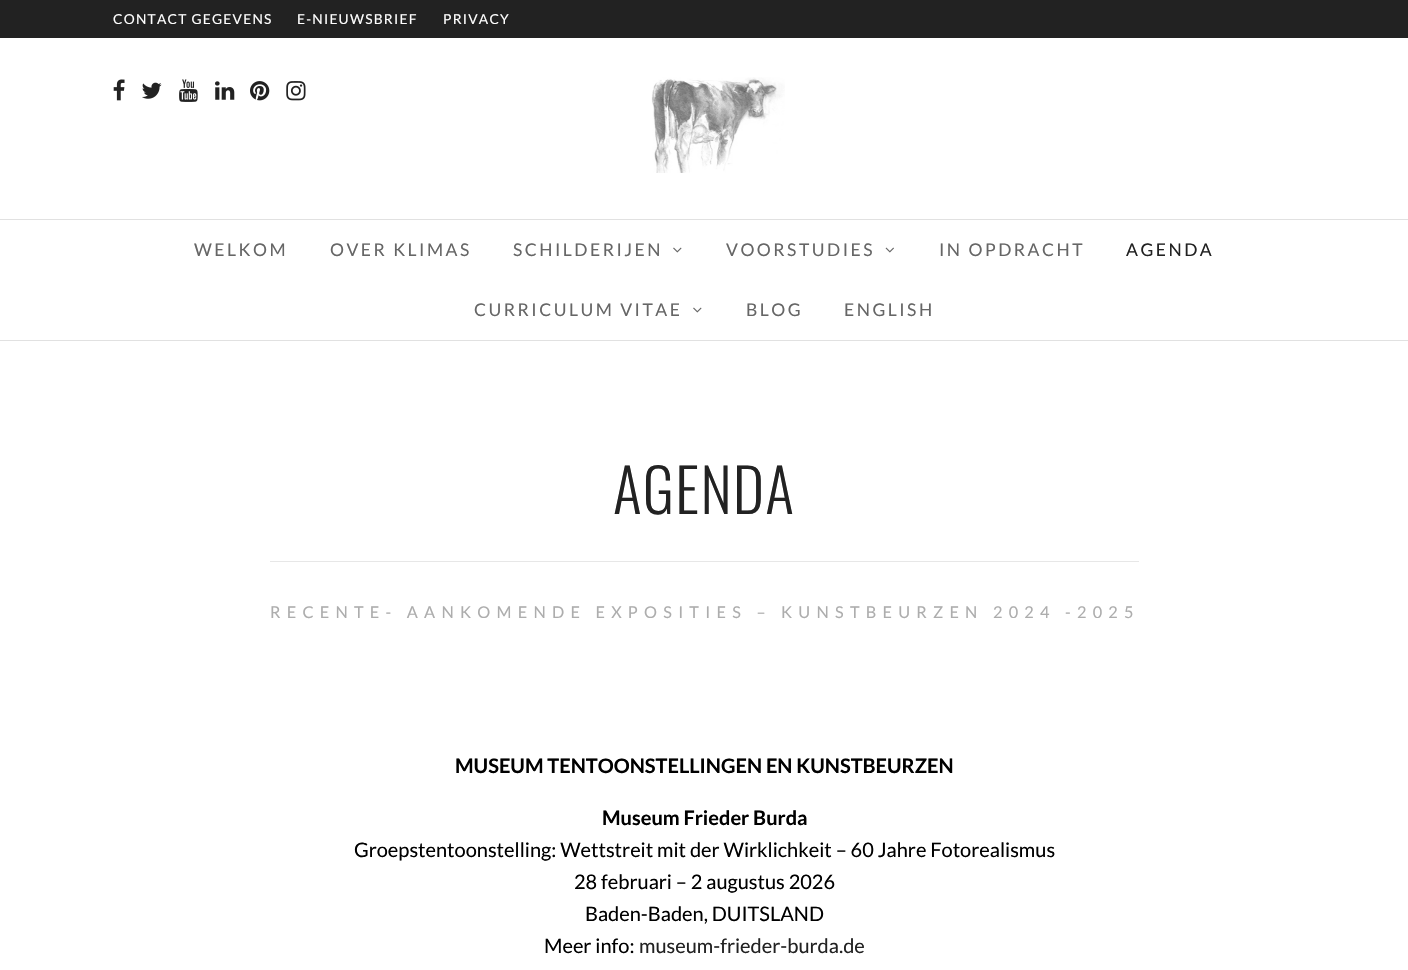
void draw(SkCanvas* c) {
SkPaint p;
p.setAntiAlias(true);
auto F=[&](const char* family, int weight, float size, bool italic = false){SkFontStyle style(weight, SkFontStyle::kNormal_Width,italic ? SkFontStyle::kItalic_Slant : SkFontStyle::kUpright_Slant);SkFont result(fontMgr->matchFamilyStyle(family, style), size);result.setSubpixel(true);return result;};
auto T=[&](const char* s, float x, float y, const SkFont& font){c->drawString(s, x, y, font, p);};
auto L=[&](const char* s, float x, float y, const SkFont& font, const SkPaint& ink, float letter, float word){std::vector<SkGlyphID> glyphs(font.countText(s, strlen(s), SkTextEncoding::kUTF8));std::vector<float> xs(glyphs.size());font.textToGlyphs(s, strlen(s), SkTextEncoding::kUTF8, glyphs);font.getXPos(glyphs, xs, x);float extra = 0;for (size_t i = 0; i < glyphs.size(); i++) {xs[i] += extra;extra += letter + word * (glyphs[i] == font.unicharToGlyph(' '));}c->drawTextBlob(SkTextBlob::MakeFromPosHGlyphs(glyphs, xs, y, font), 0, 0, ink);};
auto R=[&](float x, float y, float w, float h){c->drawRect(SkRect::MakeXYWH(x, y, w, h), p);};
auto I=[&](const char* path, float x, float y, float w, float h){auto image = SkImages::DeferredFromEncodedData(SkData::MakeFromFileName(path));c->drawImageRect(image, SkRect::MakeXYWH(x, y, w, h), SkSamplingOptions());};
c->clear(0xffffffff);
p.setColor(0xff222222);
R(0,0,1408,38);
auto f1 = F("Lato",400,13.75);
p.setColor(0xffffffff);
L("CONTACT GEGEVENS",113,24,f1,p,1.25,0);
L("E-NIEUWSBRIEF",297,24,f1,p,1.25,0);
L("PRIVACY",443,24,f1,p,1.25,0);
p.setColor(0xffe1e1e1);
R(0,340,1408,1);
R(0,219,1408,1);
I("1.png",113,79,12,22);
I("2.png",142,82,20,17);
I("3.png",179,79,19,23);
I("4.png",215,81,20,19);
I("5.png",250,81,20,20);
I("6.png",286,81,20,20);
I("7.png",651,77,134,96);
auto f2 = F("Lato",400,17.5);
p.setColor(0xff666666);
L("WELKOM",194,256,f2,p,2.5,0);
L("OVER KLIMAS",330,256,f2,p,2.5,0);
L("SCHILDERIJEN",513,256,f2,p,2.5,0);
I("8.png",673,247,9,6);
L("VOORSTUDIES",726,256,f2,p,2.5,0);
I("9.png",885,247,9,6);
L("IN OPDRACHT",939,256,f2,p,2.5,0);
p.setColor(0xff222222);
L("AGENDA",1126,256,f2,p,2.5,0);
p.setColor(0xff666666);
L("CURRICULUM VITAE",474,316,f2,p,2.5,0);
I("8.png",693,307,9,6);
L("BLOG",746,316,f2,p,2.5,0);
L("ENGLISH",844,316,f2,p,2.5,0);
auto f3 = F("Oswald",300,60);
p.setColor(0xff222222);
L("AGENDA",613,514,f3,p,1.25,0);
p.setColor(0xffe7e7e7);
R(270,561,869,1);
auto f4 = F("Lato",400,16.25);
p.setColor(0xffadadad);
L("RECENTE- AANKOMENDE EXPOSITIES – KUNSTBEURZEN 2024 -2025",270,618,f4,p,6.25,0);
auto f5 = F("Lato",700,20);
p.setColor(0xff000000);
T("MUSEUM TENTOONSTELLINGEN EN KUNSTBEURZEN",455,773,f5);
T("Museum Frieder Burda",602,825,f5);
auto f6 = F("Lato",400,20);
T("Groepstentoonstelling: Wettstreit mit der Wirklichkeit – 60 Jahre Fotorealismus",354,857,f6);
T("28 februari – 2 augustus 2026",574,889,f6);
T("Baden-Baden, DUITSLAND",585,921,f6);
T("Meer info:",544,953,f6);
p.setColor(0xff222222);
T("museum-frieder-burda.de",639,953,f6);
}
